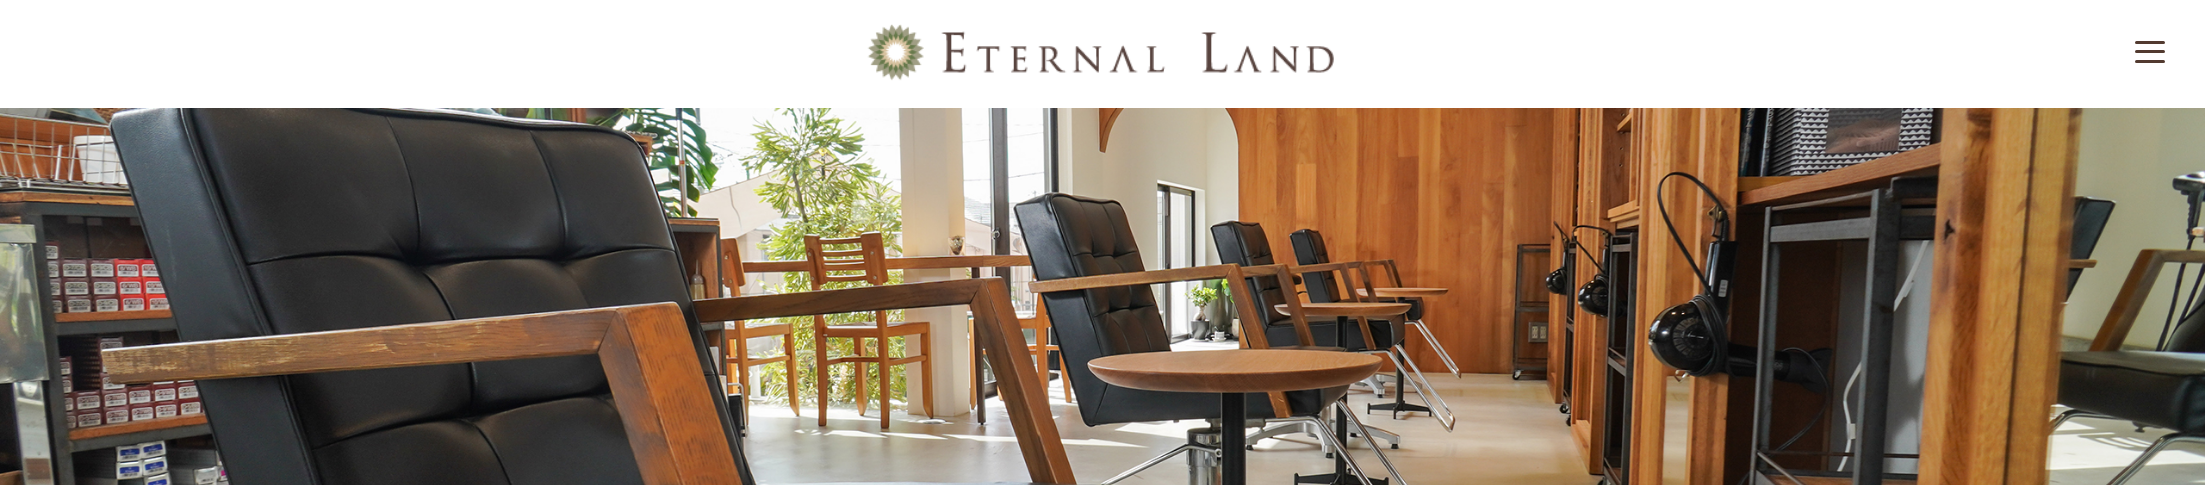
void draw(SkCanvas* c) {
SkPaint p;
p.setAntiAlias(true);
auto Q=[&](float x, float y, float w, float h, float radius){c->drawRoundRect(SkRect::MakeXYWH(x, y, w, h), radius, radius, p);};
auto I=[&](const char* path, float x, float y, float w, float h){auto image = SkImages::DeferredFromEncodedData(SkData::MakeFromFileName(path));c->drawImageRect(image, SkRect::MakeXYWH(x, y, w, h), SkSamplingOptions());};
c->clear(0xffffffff);
I("1.png",867,24,467,57);
p.setColor(0xff523a30);
Q(2135,41,30,3,1.5);
Q(2135,50,30,3,1.5);
Q(2135,60,30,3,1.5);
I("2.png",0,108,2205,377);
}
